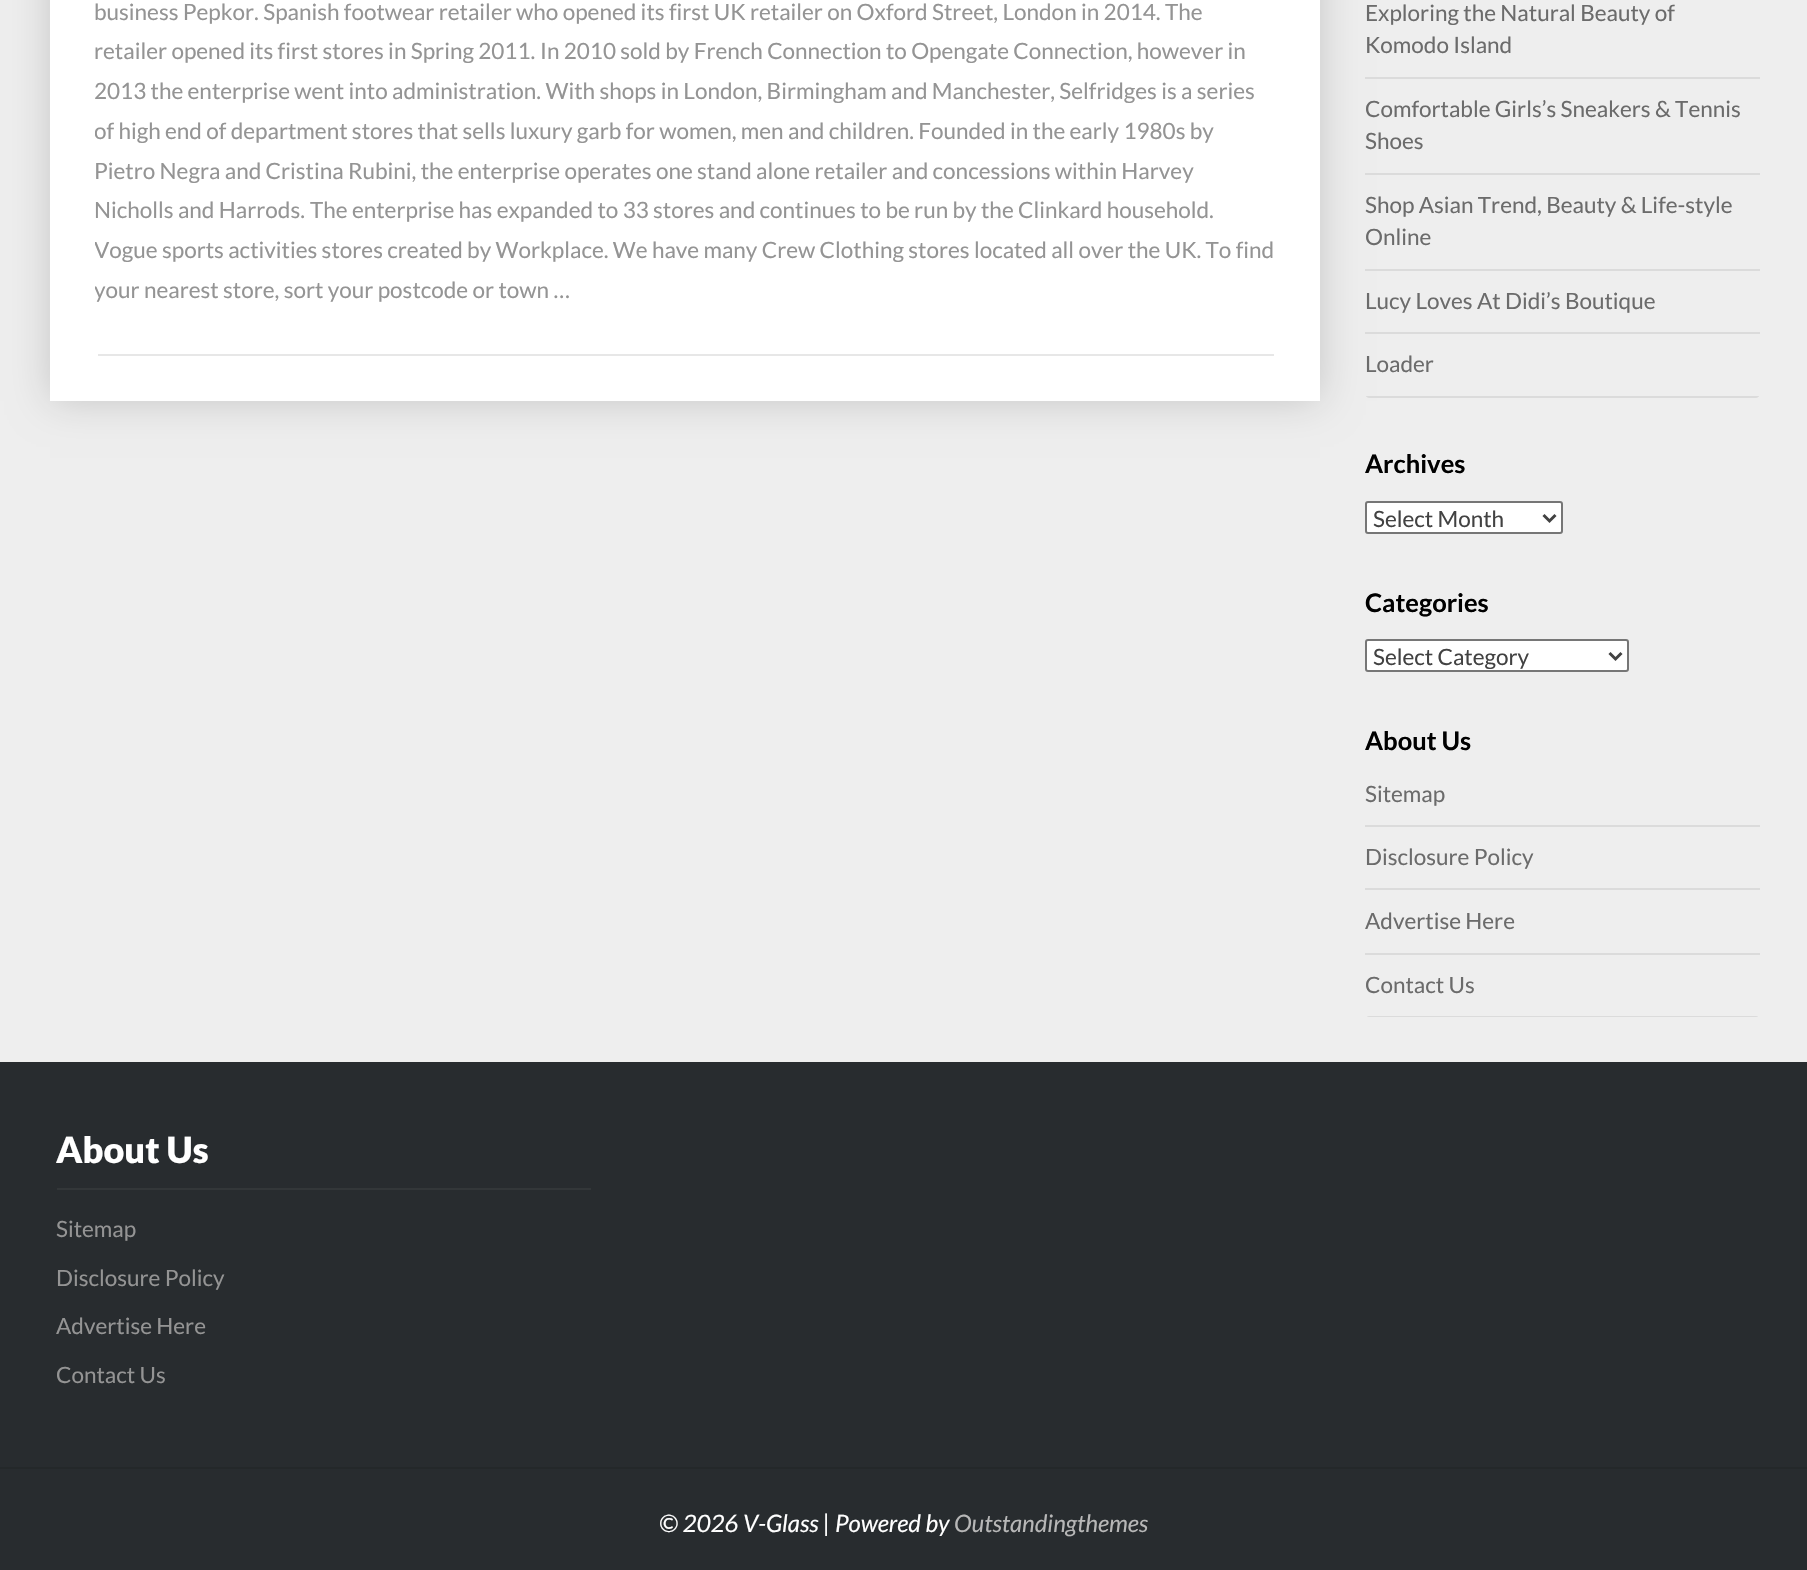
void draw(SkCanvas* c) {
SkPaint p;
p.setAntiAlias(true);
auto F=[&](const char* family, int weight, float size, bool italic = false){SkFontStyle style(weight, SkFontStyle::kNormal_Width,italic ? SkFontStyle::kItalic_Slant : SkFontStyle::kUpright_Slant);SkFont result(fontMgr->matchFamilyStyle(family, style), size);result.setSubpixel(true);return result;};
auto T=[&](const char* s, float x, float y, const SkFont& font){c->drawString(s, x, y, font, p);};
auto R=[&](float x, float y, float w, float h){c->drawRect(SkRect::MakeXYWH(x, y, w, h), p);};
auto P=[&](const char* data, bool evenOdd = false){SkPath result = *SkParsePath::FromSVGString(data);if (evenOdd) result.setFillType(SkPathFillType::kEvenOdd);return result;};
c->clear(0xffeeeeee);
p.setColor(0x2b000000);
p.setMaskFilter(SkMaskFilter::MakeBlur(kNormal_SkBlurStyle, 19));
c->drawRect(SkRect::MakeXYWH(50,-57,1270,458),p);
p.setMaskFilter(nullptr);
p.setColor(0xffffffff);
R(50,0,1270,401);
p.setColor(0xffe7e7e7);
R(98,354,1176,2);
auto f1 = F("Lato",400,22.5);
p.setColor(0xff949494);
T("business Pepkor. Spanish footwear retailer who opened its first UK retailer on Oxford Street, London in 2014. The",94,20,f1);
T("retailer opened its first stores in Spring 2011.",94,59,f1);
T("In 2010 sold by French Connection to Opengate Connection, however in",540,59,f1);
T("2013 the enterprise went into administration. With shops in London, Birmingham and Manchester, Selfridges is a series",94,99,f1);
c->save();
c->clipRect(SkRect::MakeXYWH(95,0,1180,309));
T("of high end of department stores that sells luxury garb for women, men and children. Founded in the early 1980s by",94,139,f1);
c->restore();
T("Pietro Negra and Cristina Rubini, the enterprise operates one stand alone retailer and concessions within Harvey",94,179,f1);
T("Nicholls and Harrods.",94,218,f1);
T("The enterprise has expanded to 33 stores and continues to be run by the Clinkard household.",310,218,f1);
c->save();
c->clipRect(SkRect::MakeXYWH(95,0,1180,309));
T("Vogue sports activities stores created by Workplace. We have many Crew Clothing stores located all over the UK. To find",94,258,f1);
T("your nearest store, sort your postcode or town …",94,298,f1);
c->restore();
p.setColor(0xffdbdbdb);
R(1365,77,395,2);
p.setColor(0xff6b6b6b);
T("Exploring the Natural Beauty of",1365,21,f1);
T("Komodo Island",1365,53,f1);
p.setColor(0xffdbdbdb);
R(1365,173,395,2);
p.setColor(0xff6b6b6b);
T("Comfortable Girls’s Sneakers & Tennis",1365,117,f1);
T("Shoes",1365,149,f1);
p.setColor(0xffdbdbdb);
R(1365,269,395,2);
p.setColor(0xff6b6b6b);
T("Shop Asian Trend, Beauty & Life-style",1365,213,f1);
T("Online",1365,245,f1);
p.setColor(0xffdbdbdb);
R(1365,332,395,2);
p.setColor(0xff6b6b6b);
T("Lucy Loves At Didi’s Boutique",1365,309,f1);
c->save();
c->clipPath(P("M1370-54h385c3 0 5 2 5 5v442c0 3-2 5-5 5h-385c-3 0-5-2-5-5v-442c0-3 2-5 5-5z"),true);
p.setColor(0xffdbdbdb);
R(1365,396,395,2);
c->restore();
p.setColor(0xff6b6b6b);
T("Loader",1365,372,f1);
auto f2 = F("Lato",700,25.5);
p.setColor(0xff000000);
T("Archives",1365,473,f2);
p.setColor(0xffffffff);
c->drawRoundRect(SkRect::MakeXYWH(1366,502,196,31),2,2,p);
p.setStroke(true);
p.setStrokeWidth(2);
p.setColor(0xff767676);
c->drawRoundRect(SkRect::MakeXYWH(1366,502,196,31),2,2,p);
p.setStrokeWidth(3);
p.setColor(0xff424242);
c->drawPath(P("M1543.5 515l6 6l6-6"),p);
p.setStroke(false);
T("Select Month",1373,527,f1);
p.setColor(0xff000000);
T("Categories",1365,612,f2);
p.setColor(0xffffffff);
c->drawRoundRect(SkRect::MakeXYWH(1366,640,262,31),2,2,p);
p.setStroke(true);
p.setStrokeWidth(2);
p.setColor(0xff767676);
c->drawRoundRect(SkRect::MakeXYWH(1366,640,262,31),2,2,p);
p.setStrokeWidth(3);
p.setColor(0xff424242);
c->drawPath(P("M1609.5 653l6 6l6-6"),p);
p.setStroke(false);
T("Select Category",1373,665,f1);
p.setColor(0xff000000);
T("About Us",1365,750,f2);
p.setColor(0xffdbdbdb);
R(1365,825,395,2);
p.setColor(0xff6b6b6b);
T("Sitemap",1365,802,f1);
p.setColor(0xffdbdbdb);
R(1365,888,395,2);
p.setColor(0xff6b6b6b);
T("Disclosure Policy",1365,865,f1);
p.setColor(0xffdbdbdb);
R(1365,953,395,2);
p.setColor(0xff6b6b6b);
T("Advertise Here",1365,929,f1);
c->save();
c->clipPath(P("M1370 726h385c3 0 5 2 5 5v281c0 3-2 5-5 5h-385c-3 0-5-2-5-5v-281c0-3 2-5 5-5z"),true);
p.setColor(0xffdbdbdb);
R(1365,1016,395,1);
c->restore();
p.setColor(0xff6b6b6b);
T("Contact Us",1365,993,f1);
p.setColor(0xff282c2f);
R(0,1062,1807,405);
p.setColor(0xff333739);
R(57,1188,534,2);
auto f3 = F("Lato",900,36);
p.setColor(0xffffffff);
T("About Us",56,1163,f3);
p.setColor(0xff949494);
T("Sitemap",56,1237,f1);
T("Disclosure Policy",56,1286,f1);
T("Advertise Here",56,1334,f1);
T("Contact Us",56,1383,f1);
p.setColor(0xff282c2f);
R(0,1469,1807,101);
p.setColor(0xff24282a);
R(0,1467,1807,2);
auto f4 = F("Lato",400,24,true);
p.setColor(0xffffffff);
T("© 2026 V-Glass | Powered by",659,1532,f4);
p.setColor(0xffb7b7b7);
T("Outstandingthemes",954,1532,f4);
}
